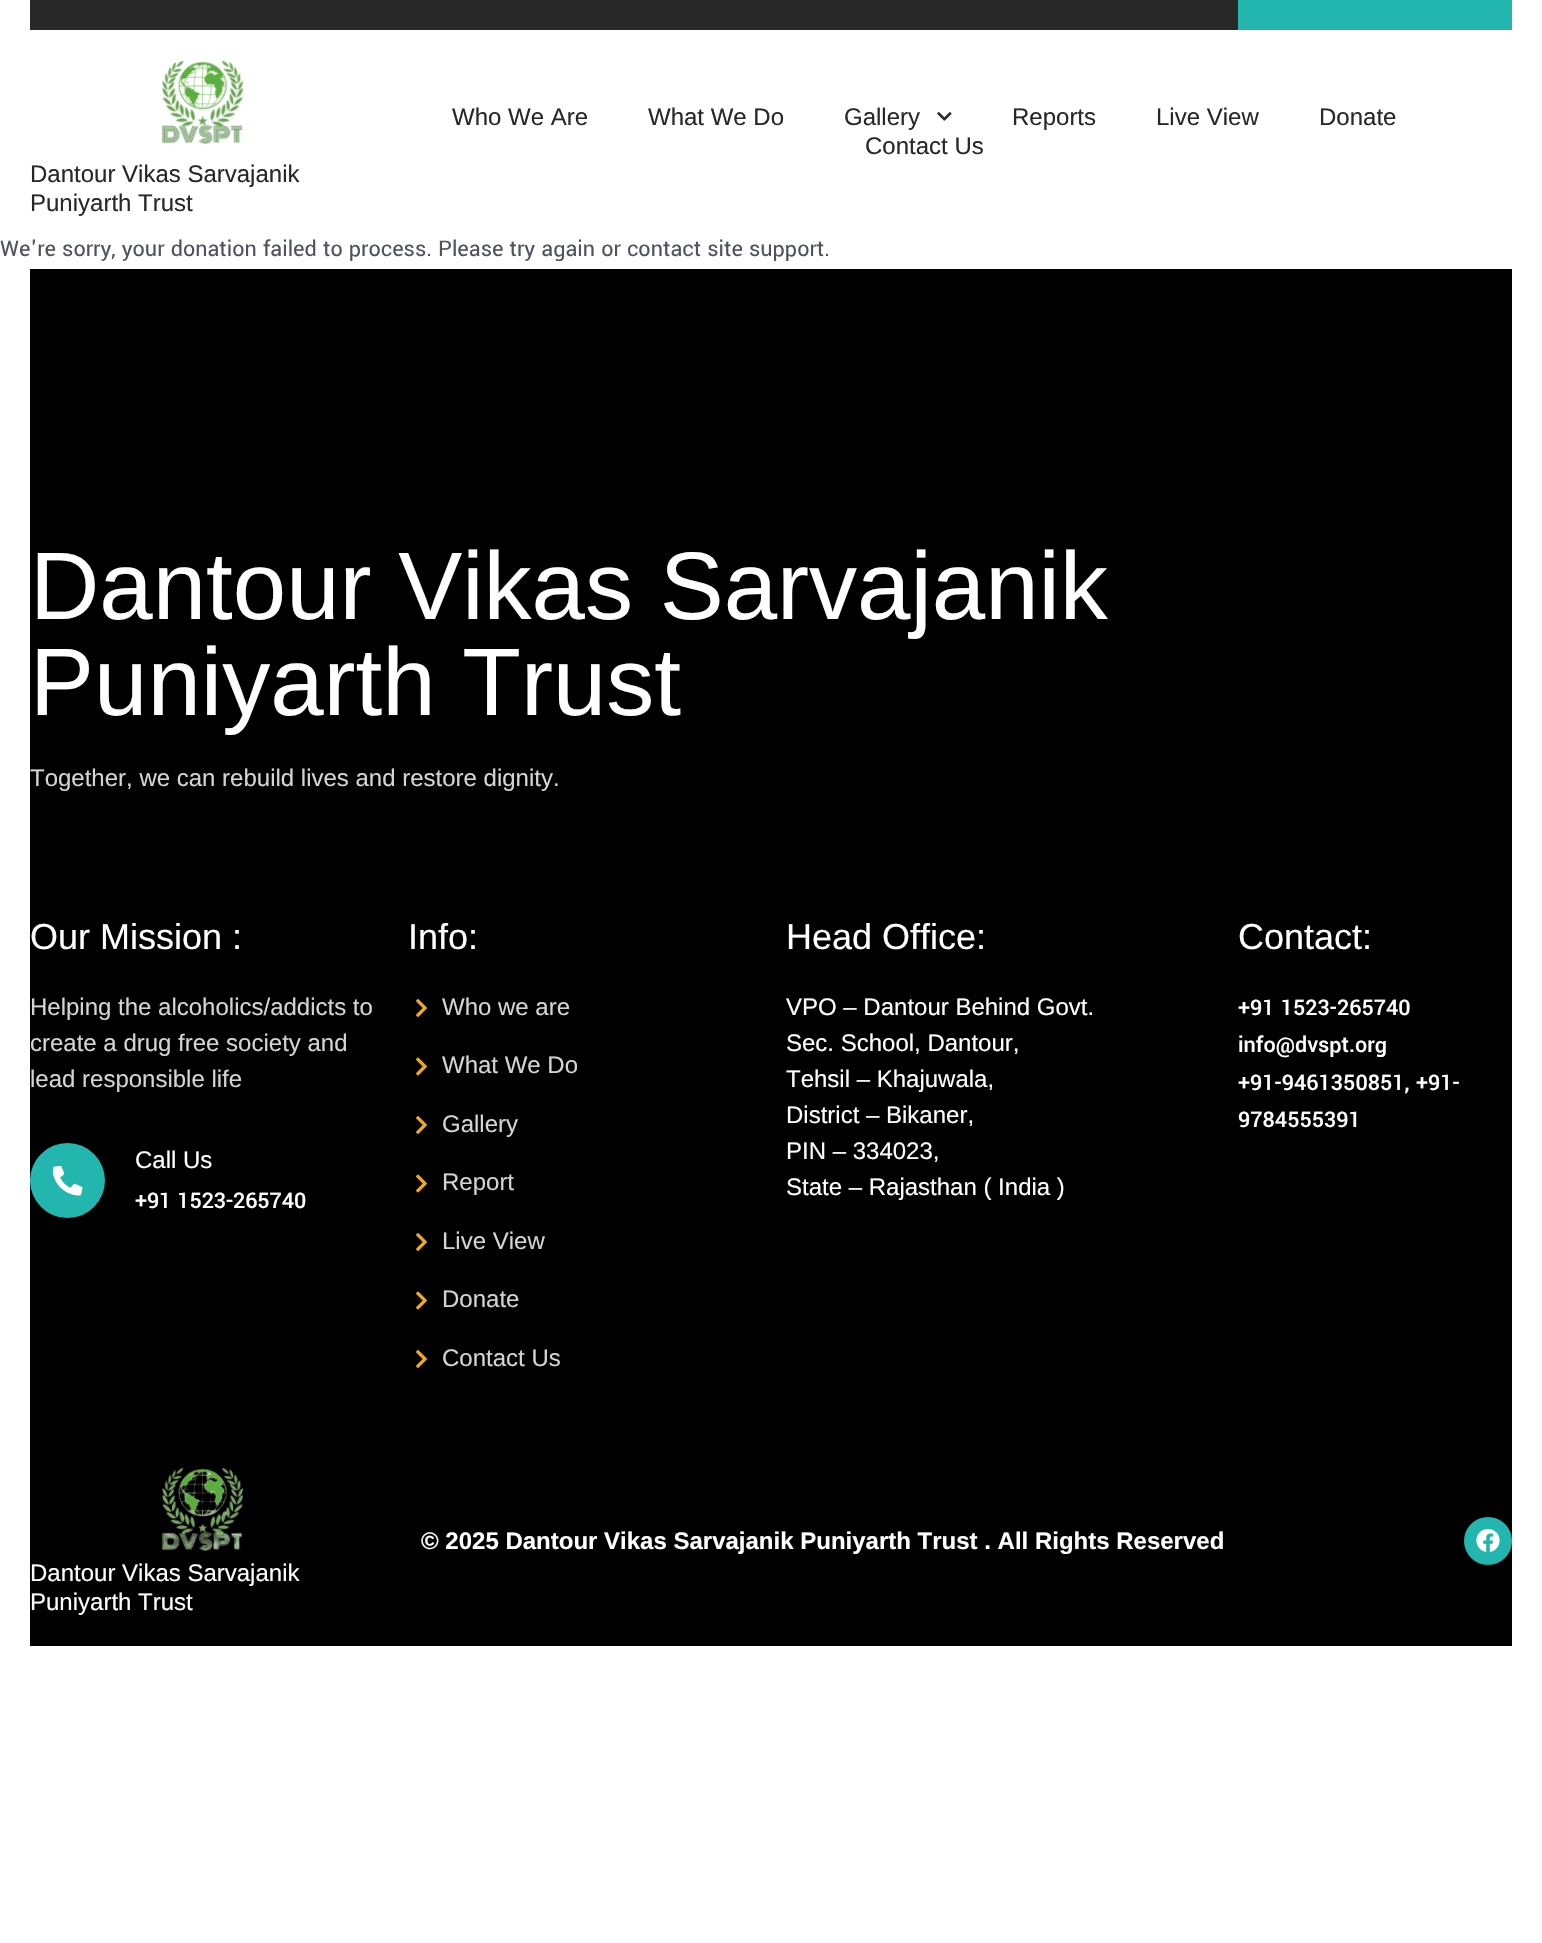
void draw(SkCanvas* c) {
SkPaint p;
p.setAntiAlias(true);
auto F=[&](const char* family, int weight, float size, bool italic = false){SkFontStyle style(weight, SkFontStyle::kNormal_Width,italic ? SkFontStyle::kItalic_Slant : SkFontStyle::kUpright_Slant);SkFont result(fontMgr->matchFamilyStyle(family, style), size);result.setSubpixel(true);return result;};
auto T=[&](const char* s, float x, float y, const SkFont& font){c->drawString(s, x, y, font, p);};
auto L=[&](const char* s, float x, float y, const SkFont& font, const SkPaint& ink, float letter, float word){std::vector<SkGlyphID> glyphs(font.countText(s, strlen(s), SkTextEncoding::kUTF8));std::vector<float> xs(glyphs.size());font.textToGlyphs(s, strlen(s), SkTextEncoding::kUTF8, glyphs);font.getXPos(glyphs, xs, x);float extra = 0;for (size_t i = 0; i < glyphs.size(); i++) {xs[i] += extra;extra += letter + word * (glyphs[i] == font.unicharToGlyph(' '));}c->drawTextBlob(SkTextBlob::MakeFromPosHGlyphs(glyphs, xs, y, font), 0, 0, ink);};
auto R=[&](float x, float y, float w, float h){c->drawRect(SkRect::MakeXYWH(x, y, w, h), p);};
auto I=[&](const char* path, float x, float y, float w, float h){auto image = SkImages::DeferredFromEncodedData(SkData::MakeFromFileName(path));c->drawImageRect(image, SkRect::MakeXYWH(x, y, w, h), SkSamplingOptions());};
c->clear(0xffffffff);
p.setColor(0xff282828);
R(30,0,1208,30);
p.setColor(0xff22b6af);
R(1238,0,274,30);
auto f1 = F("Liberation Sans",400,24);
p.setColor(0xff282828);
T("Who We Are",452,125,f1);
T("What We Do",648,125,f1);
T("Gallery",844,125,f1);
I("1.png",937,112,15,9);
T("Reports",1012,125,f1);
T("Live View",1156,125,f1);
T("Donate",1319,125,f1);
T("Contact Us",865,154,f1);
I("2.png",161,60,83,84);
T("Dantour Vikas Sarvajanik",30,182,f1);
T("Puniyarth Trust",30,211,f1);
auto f2 = F("Yantramanav",400,24);
p.setColor(0xff505260);
T("We're sorry, your donation failed to process. Please try again or contact site support.",0,256,f2);
p.setColor(0xff000000);
R(30,269,1482,1377);
auto f3 = F("Liberation Sans",400,96);
p.setColor(0xffffffff);
T("Dantour Vikas Sarvajanik",30,619,f3);
T("Puniyarth Trust",30,715,f3);
p.setColor(0xffd4d4d4);
T("Together, we can rebuild lives and restore dignity.",30,786,f1);
auto f4 = F("Liberation Sans",400,36);
p.setColor(0xffffffff);
T("Our Mission :",30,949,f4);
p.setColor(0xffd4d4d4);
T("Helping the alcoholics/addicts to",30,1015,f1);
T("create a drug free society and",30,1051,f1);
T("lead responsible life",30,1087,f1);
p.setColor(0xff22b6af);
c->drawCircle(67.5,1180.5,37.5,p);
I("3.png",53,1166,30,30);
p.setColor(0xffffffff);
T("Call Us",135,1168,f1);
auto f5 = F("Yantramanav",500,24);
L("+91 1523-265740",135,1208,f5,p,-.1,0);
T("Info:",408,949,f4);
I("4.png",416,999,11,18);
p.setColor(0xffd4d4d4);
T("Who we are",442,1015,f1);
I("5.png",416,1057,11,19);
T("What We Do",442,1073,f1);
I("4.png",416,1116,11,18);
T("Gallery",442,1132,f1);
I("5.png",416,1174,11,19);
T("Report",442,1190,f1);
I("4.png",416,1233,11,18);
T("Live View",442,1249,f1);
I("5.png",416,1291,11,19);
T("Donate",442,1307,f1);
I("4.png",416,1350,11,18);
T("Contact Us",442,1366,f1);
p.setColor(0xffffffff);
T("Head Office:",786,949,f4);
T("VPO – Dantour Behind Govt.",786,1015,f1);
T("Sec. School, Dantour,",786,1051,f1);
T("Tehsil – Khajuwala,",786,1087,f1);
T("District – Bikaner,",786,1123,f1);
T("PIN – 334023,",786,1159,f1);
T("State – Rajasthan ( India )",786,1195,f1);
T("Contact:",1238,949,f4);
T("+91 1523-265740",1238,1015,f5);
T("info@dvspt.org",1238,1052,f5);
T("+91-9461350851,",1238,1090,f5);
T("+91-",1416,1090,f5);
T("9784555391",1238,1127,f5);
auto f6 = F("Liberation Sans",700,24);
T("© 2025 Dantour Vikas Sarvajanik Puniyarth Trust . All Rights Reserved",421,1549,f6);
p.setColor(0xff22b6af);
c->drawCircle(1488,1541,24,p);
I("6.png",1476,1529,24,23);
I("7.png",162,1467,82,84);
p.setColor(0xffffffff);
T("Dantour Vikas Sarvajanik",30,1581,f1);
T("Puniyarth Trust",30,1610,f1);
}
